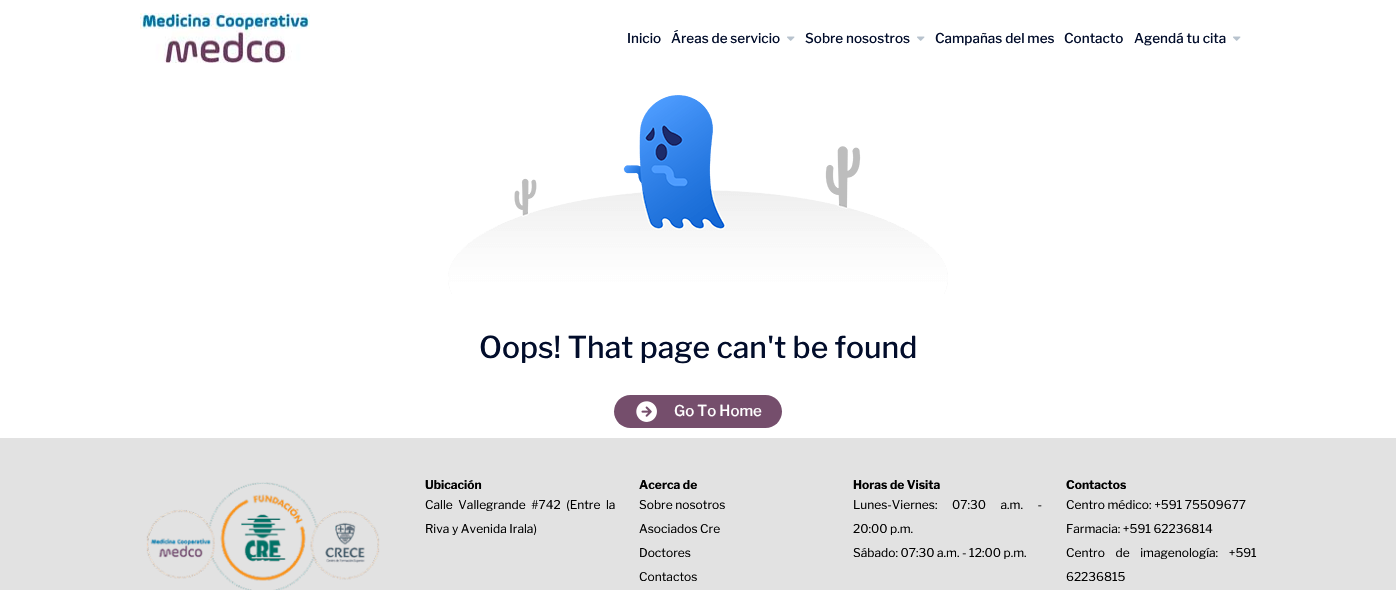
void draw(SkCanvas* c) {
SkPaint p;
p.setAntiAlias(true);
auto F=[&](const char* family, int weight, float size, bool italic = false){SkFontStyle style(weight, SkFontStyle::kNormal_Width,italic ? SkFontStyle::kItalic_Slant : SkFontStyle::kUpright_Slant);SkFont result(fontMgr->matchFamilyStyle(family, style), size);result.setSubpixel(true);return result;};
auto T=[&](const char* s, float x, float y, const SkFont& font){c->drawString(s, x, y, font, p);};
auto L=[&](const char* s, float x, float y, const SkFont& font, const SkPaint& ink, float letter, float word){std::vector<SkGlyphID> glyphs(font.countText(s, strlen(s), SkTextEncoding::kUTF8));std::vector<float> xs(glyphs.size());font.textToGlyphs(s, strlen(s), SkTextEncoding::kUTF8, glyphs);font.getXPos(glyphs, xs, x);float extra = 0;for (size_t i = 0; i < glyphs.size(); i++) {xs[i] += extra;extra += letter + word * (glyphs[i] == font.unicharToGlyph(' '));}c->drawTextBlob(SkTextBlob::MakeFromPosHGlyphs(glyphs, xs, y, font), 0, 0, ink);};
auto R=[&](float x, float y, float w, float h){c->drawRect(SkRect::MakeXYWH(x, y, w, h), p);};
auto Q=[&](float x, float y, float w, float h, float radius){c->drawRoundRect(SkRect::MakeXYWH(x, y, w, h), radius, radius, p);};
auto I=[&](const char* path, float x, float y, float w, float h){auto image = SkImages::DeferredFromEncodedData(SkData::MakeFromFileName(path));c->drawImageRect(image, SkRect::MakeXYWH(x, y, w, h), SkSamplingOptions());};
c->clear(0xffffffff);
I("1.png",140,13,170,50);
auto f1 = F("Libre Franklin",500,13.5);
p.setColor(0xff020d2b);
T("Inicio",627,43,f1);
T("Áreas de servicio",671,43,f1);
I("2.png",787,36,8,5);
T("Sobre nosostros",805,43,f1);
I("2.png",917,36,8,5);
T("Campañas del mes",935,43,f1);
T("Contacto",1064,43,f1);
T("Agendá tu cita",1134,43,f1);
I("2.png",1233,36,8,5);
I("3.png",448,95,500,199);
auto f2 = F("Libre Franklin",500,30);
T("Oops! That page can't be found",479,358,f2);
p.setColor(0xff754e6c);
Q(614,395,168,33,16.5);
I("4.png",636,401,21,21);
auto f3 = F("Libre Franklin",500,15);
p.setColor(0xffffffff);
T("Go To Home",674,416,f3);
p.setColor(0xffe2e2e2);
R(0,438,1396,152);
I("5.png",146,482,234,108);
auto f4 = F("Libre Franklin",700,12);
p.setColor(0xff000000);
T("Ubicación",425,489,f4);
auto f5 = F("Libre Franklin",100,12);
L("Calle Vallegrande #742 (Entre la",425,509,f5,p,0,3);
T("Riva y Avenida Irala)",425,533,f5);
T("Acerca de",639,489,f4);
T("Sobre nosotros",639,509,f5);
T("Asociados Cre",639,533,f5);
T("Doctores",639,557,f5);
T("Contactos",639,581,f5);
T("Horas de Visita",853,489,f4);
L("Lunes-Viernes: 07:30 a.m. -",853,509,f5,p,0,12);
T("20:00 p.m.",853,533,f5);
T("Sábado: 07:30 a.m. - 12:00 p.m.",853,557,f5);
T("Contactos",1066,489,f4);
T("Centro médico: +591 75509677",1066,509,f5);
T("Farmacia: +591 62236814",1066,533,f5);
L("Centro de imagenología: +591",1066,557,f5,p,0,8);
T("62236815",1066,581,f5);
}
